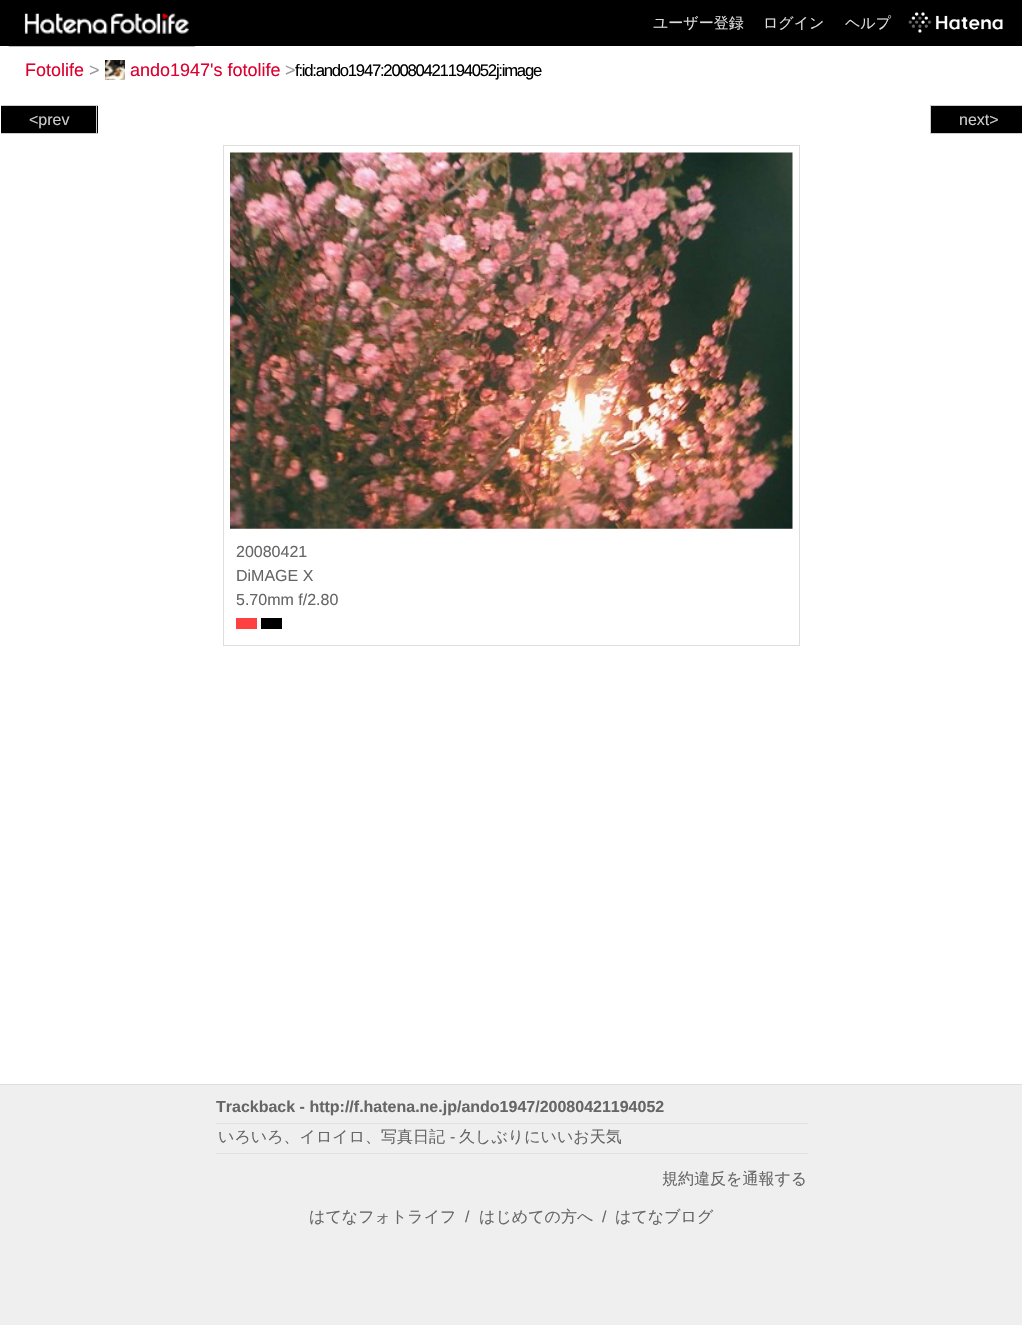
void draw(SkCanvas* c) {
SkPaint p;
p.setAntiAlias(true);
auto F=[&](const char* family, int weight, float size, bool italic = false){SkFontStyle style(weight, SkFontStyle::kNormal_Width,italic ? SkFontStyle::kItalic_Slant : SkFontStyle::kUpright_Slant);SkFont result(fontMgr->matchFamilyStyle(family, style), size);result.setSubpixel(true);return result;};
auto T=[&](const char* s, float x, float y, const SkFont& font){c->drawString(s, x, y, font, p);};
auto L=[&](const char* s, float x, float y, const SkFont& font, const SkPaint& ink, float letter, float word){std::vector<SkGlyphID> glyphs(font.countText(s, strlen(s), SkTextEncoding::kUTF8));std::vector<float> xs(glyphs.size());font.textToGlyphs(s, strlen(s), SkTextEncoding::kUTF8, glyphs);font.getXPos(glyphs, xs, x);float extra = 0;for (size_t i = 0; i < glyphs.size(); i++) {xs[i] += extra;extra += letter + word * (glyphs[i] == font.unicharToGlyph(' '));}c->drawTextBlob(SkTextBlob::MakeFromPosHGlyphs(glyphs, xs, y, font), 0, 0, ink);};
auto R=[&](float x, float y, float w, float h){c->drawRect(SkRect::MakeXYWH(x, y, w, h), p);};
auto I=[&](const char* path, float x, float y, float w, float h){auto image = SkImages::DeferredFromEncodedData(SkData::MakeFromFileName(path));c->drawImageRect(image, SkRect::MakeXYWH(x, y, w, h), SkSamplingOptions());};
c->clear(0xffefefef);
p.setColor(0xff000000);
R(0,0,1022,46);
p.setColor(0xffffffff);
R(0,46,1022,1038);
I("1.png",8,13,104,34);
I("2.png",111,13,84,34);
auto f1 = F("WenQuanYi Zen Hei",500,15);
p.setColor(0xffdddddd);
T("ユーザー登録",653,28,f1);
T("ログイン",763,28,f1);
T("ヘルプ",845,28,f1);
I("3.png",908,12,95,21);
auto f2 = F("Liberation Sans",400,18);
p.setColor(0xffde002f);
T("Fotolife",25,76,f2);
p.setColor(0xff999999);
T(">",89,76,f2);
I("4.png",105,60,20,20);
p.setColor(0xffde002f);
T("ando1947's fotolife",130,76,f2);
p.setColor(0xff999999);
T(">",285,76,f2);
auto f3 = F("Liberation Sans",400,16.7);
p.setColor(0xff000000);
L("f:id:ando1947:20080421194052j:image",295,76,f3,p,-1.25,0);
p.setColor(0xffdedede);
R(0,1084,1022,1);
p.setColor(0xff000000);
R(1,106,97,27);
p.setColor(0xffcccccc);
R(1,105,97,1);
R(96,105,1,29);
R(1,133,97,1);
auto f4 = F("Liberation Sans",400,16);
T("<prev",29,125,f4);
p.setColor(0xff000000);
R(931,106,91,27);
p.setColor(0xffcccccc);
R(930,105,92,1);
R(930,133,92,1);
R(930,105,1,29);
T("next>",959,125,f4);
p.setStroke(true);
p.setStrokeWidth(1);
p.setColor(0xffdedede);
c->drawRect(SkRect::MakeXYWH(223.5,145.5,576,500),p);
I("5.png",230,152,563,377);
p.setStroke(false);
p.setColor(0xff666666);
T("20080421",236,557,f4);
T("DiMAGE X",236,581,f4);
T("5.70mm f/2.80",236,605,f4);
p.setColor(0xffff4040);
R(236,618,21,11);
p.setColor(0xff000000);
R(261,618,21,11);
auto f5 = F("Liberation Sans",700,16);
p.setColor(0xff666666);
T("Trackback - http://f.hatena.ne.jp/ando1947/20080421194052",216,1112,f5);
p.setColor(0xffe1e1e1);
R(216,1123,592,1);
R(216,1153,592,1);
auto f6 = F("WenQuanYi Zen Hei",500,16);
p.setColor(0xff666666);
T("いろいろ、イロイロ、写真日記",218,1142,f6);
T("-",450,1142,f4);
T("久しぶりにいいお天気",459,1142,f6);
T("規約違反を通報する",662,1184,f6);
T("はてなフォトライフ",309,1222,f6);
T("/",465,1222,f4);
T("はじめての方へ",479,1222,f6);
T("/",602,1222,f4);
T("はてなブログ",615,1222,f6);
}
